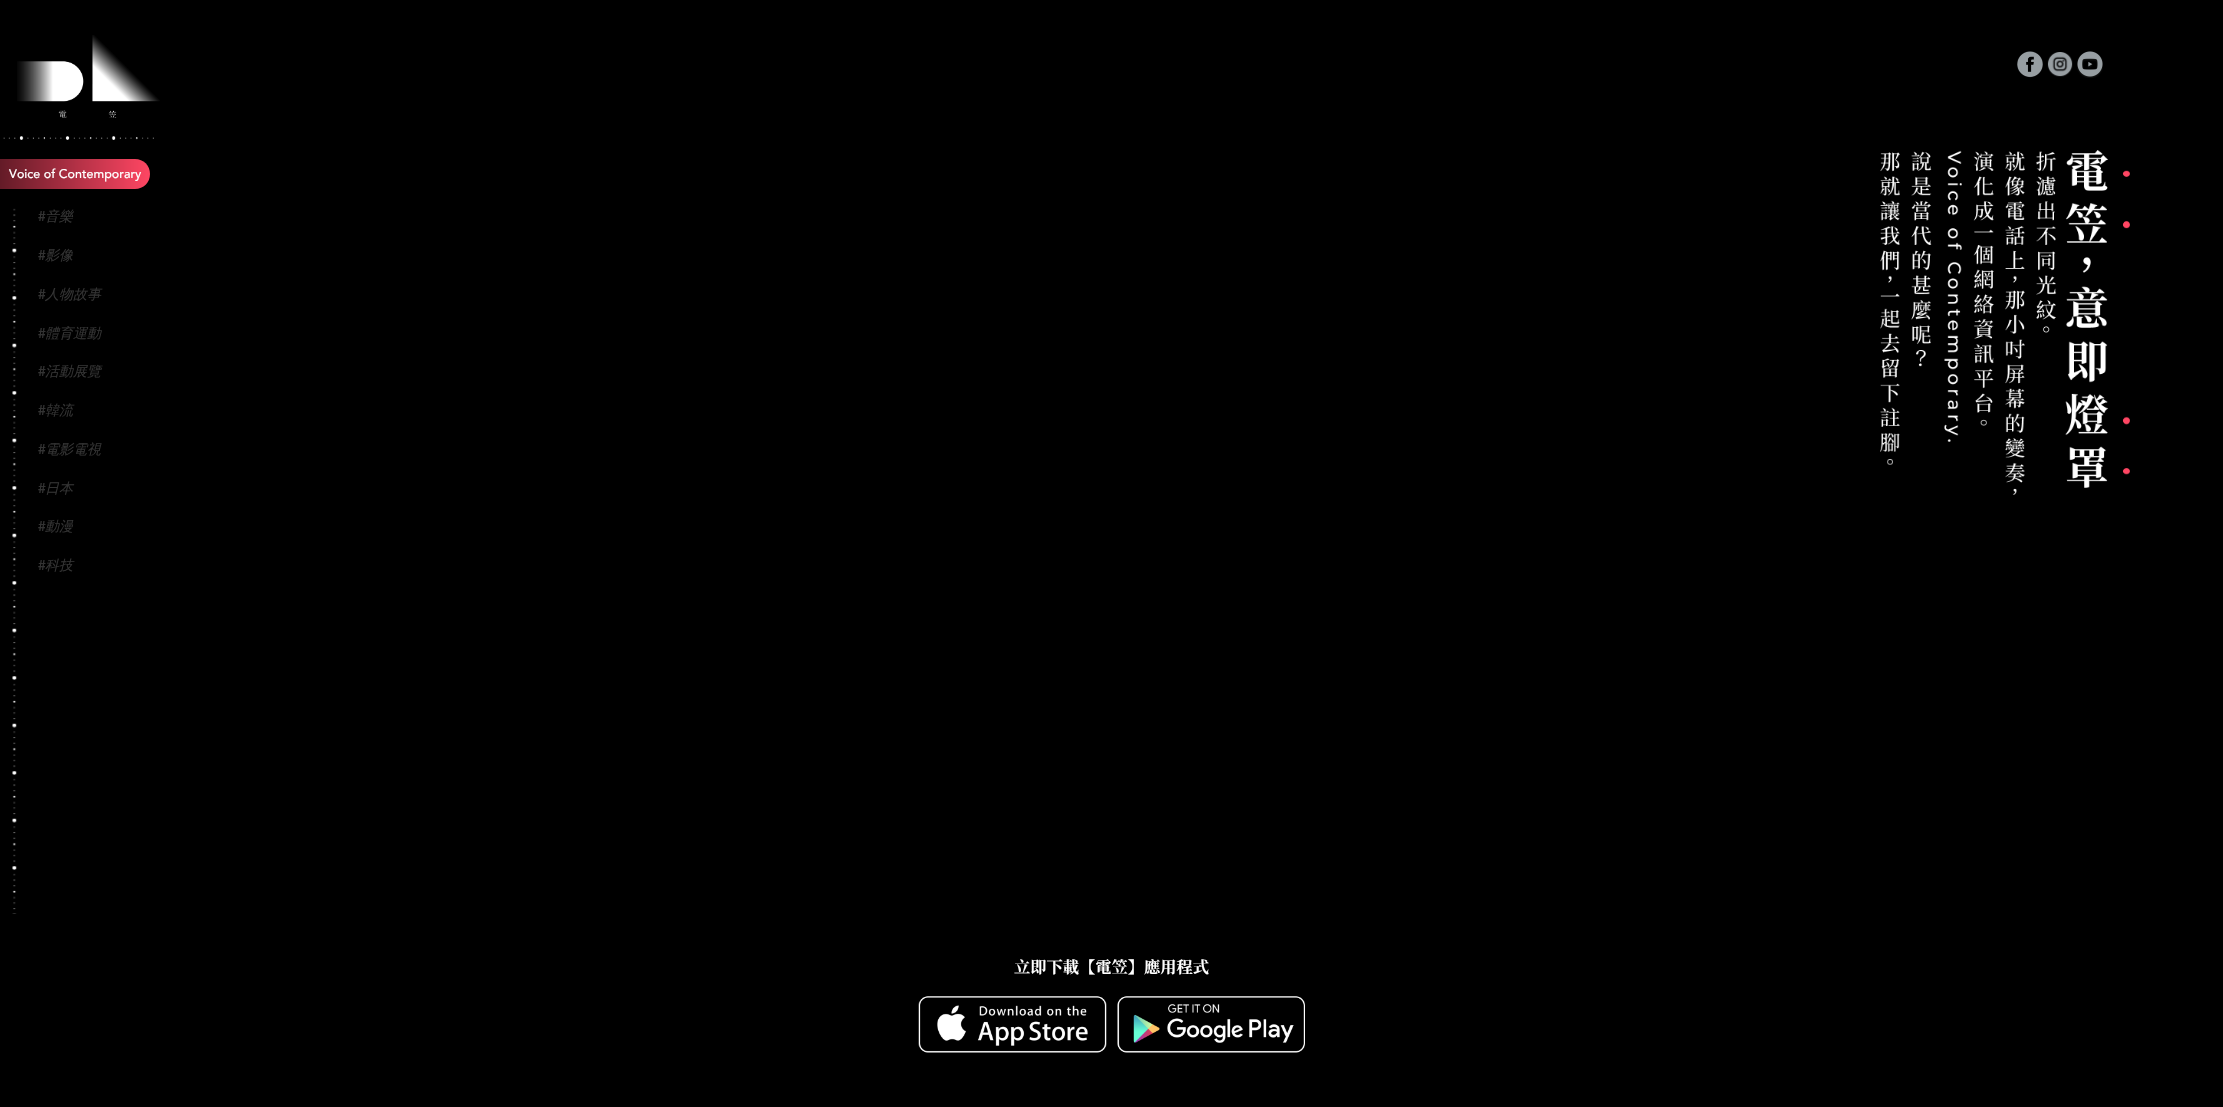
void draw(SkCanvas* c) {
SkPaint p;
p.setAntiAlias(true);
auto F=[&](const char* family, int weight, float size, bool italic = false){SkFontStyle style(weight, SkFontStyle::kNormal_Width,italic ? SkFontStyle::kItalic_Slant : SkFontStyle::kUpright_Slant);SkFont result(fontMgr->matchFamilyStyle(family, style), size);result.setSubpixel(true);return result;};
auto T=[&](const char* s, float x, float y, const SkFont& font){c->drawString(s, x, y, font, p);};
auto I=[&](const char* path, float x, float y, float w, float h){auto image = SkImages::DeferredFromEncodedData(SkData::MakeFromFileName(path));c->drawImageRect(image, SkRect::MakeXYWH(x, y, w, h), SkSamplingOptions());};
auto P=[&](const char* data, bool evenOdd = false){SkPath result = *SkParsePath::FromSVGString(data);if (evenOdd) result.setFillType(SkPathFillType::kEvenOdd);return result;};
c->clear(0xff000000);
I("1.png",2017,51,26,27);
I("2.png",2047,52,26,25);
I("3.png",2077,51,26,27);
I("4.png",17,35,143,83);
I("5.png",3,136,151,4);
{
const SkColor colors[] = {0xff631b27,0xffff4663};
const float stops[] = {0,1};
const SkPoint ends[] = {{0,174}, {150,174}};
p.setShader(SkGradientShader::MakeLinear(ends, colors, stops, 2, SkTileMode::kClamp));
p.setAlpha(255);
}
c->drawPath(P("M0 159h135c8.5 0 15 6.5 15 15c0 8.5-6.5 15-15 15h-135z"),p);
auto f1 = F("Avenir",500,12.5);
p.setShader(nullptr);
p.setColor(0xffffffff);
T("Voice of Contemporary",9,178,f1);
I("6.png",12,208,5,706);
auto f2 = F("Avenir",500,14,true);
p.setColor(0xff333333);
T("#",38,221,f2);
auto f3 = F("WenQuanYi Zen Hei",500,14,true);
T("音樂",45,221,f3);
T("#",38,260,f2);
T("影像",45,260,f3);
T("#",38,299,f2);
T("人物故事",45,299,f3);
T("#",38,338,f2);
T("體育運動",45,338,f3);
T("#",38,376,f2);
T("活動展覽",45,376,f3);
T("#",38,415,f2);
T("韓流",45,415,f3);
T("#",38,454,f2);
T("電影電視",45,454,f3);
T("#",38,493,f2);
T("日本",45,493,f3);
T("#",38,531,f2);
T("動漫",45,531,f3);
T("#",38,570,f2);
T("科技",45,570,f3);
I("7.png",1880,150,250,345);
auto f4 = F("Noto Serif TC",700,16.25);
p.setColor(0xffffffff);
T("立即下載【電笠】應用程式",1014,973,f4);
I("8.png",918,996,189,57);
I("9.png",1117,996,188,57);
}
